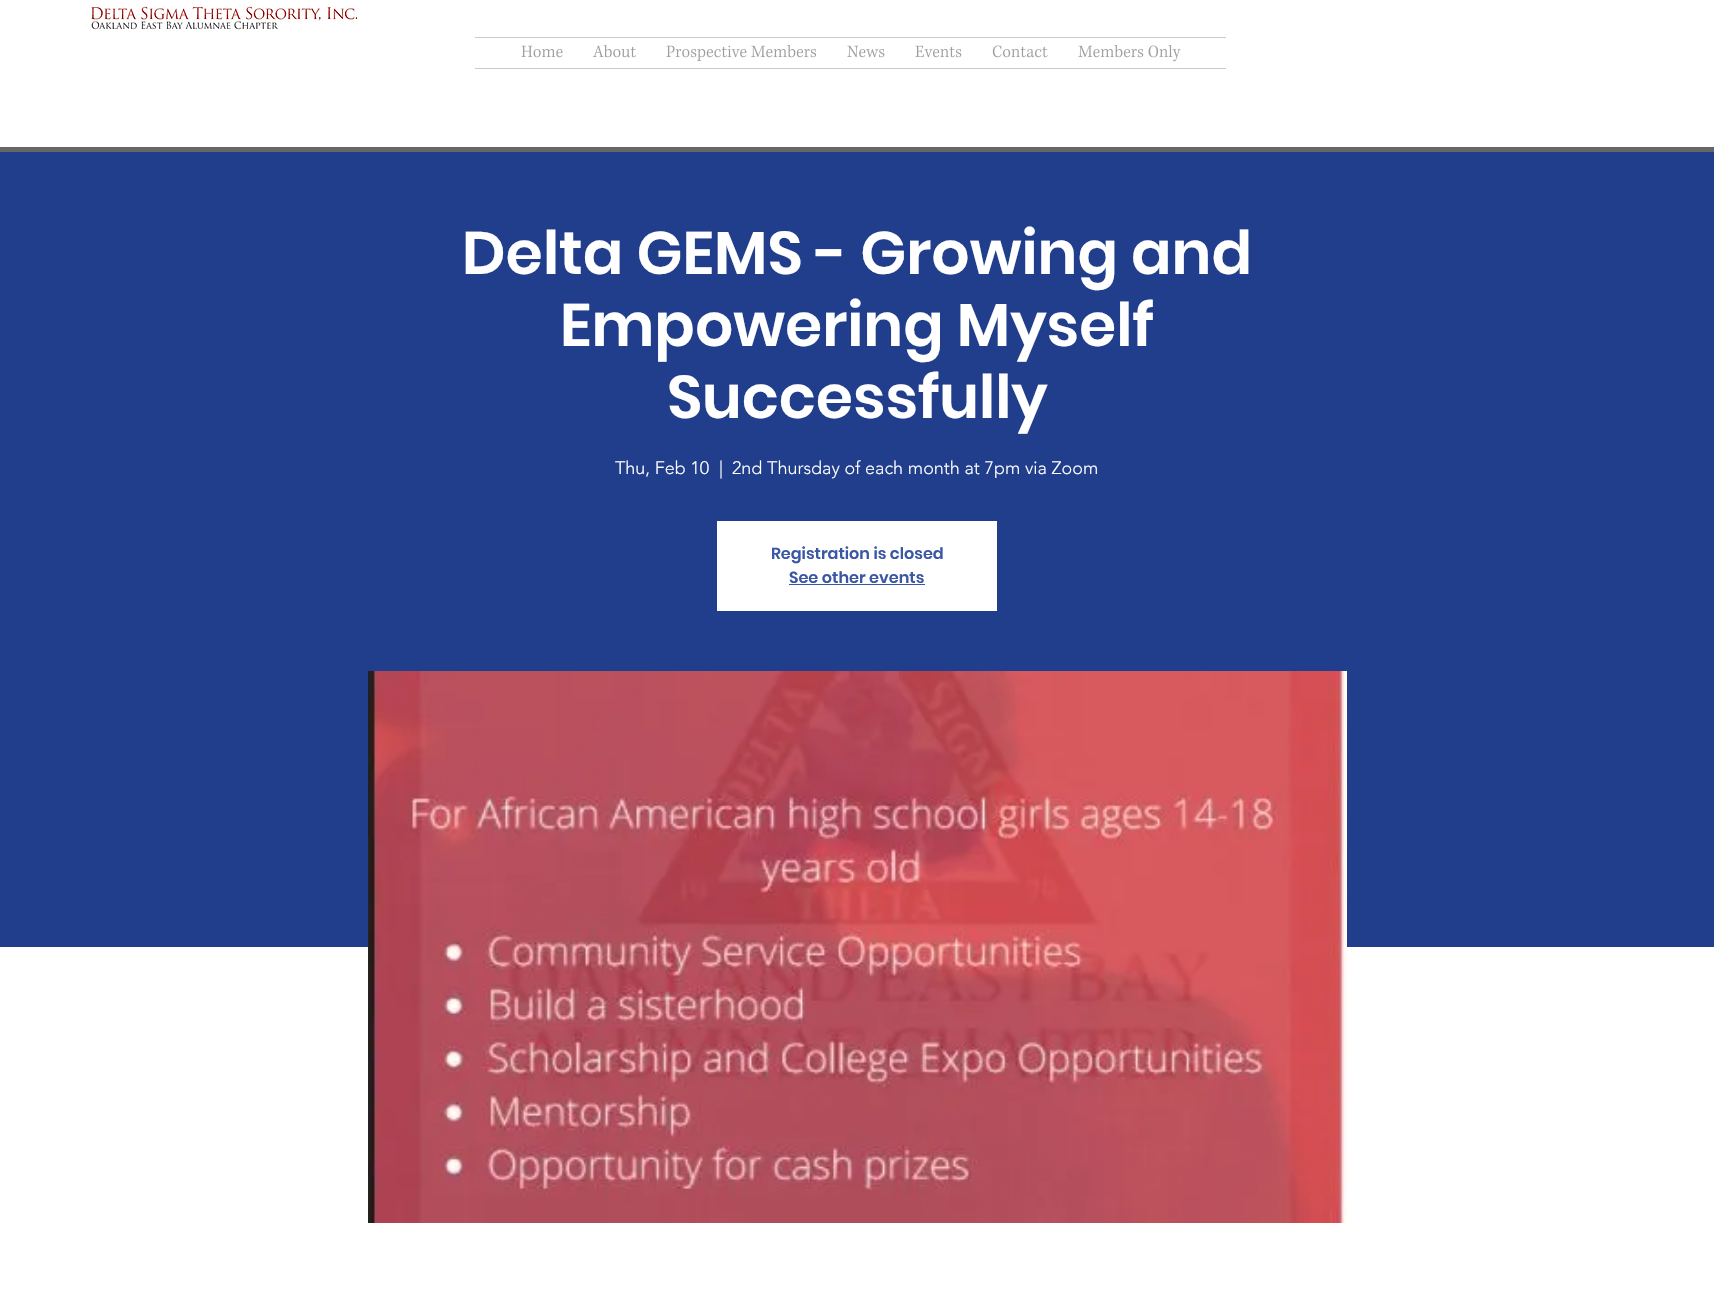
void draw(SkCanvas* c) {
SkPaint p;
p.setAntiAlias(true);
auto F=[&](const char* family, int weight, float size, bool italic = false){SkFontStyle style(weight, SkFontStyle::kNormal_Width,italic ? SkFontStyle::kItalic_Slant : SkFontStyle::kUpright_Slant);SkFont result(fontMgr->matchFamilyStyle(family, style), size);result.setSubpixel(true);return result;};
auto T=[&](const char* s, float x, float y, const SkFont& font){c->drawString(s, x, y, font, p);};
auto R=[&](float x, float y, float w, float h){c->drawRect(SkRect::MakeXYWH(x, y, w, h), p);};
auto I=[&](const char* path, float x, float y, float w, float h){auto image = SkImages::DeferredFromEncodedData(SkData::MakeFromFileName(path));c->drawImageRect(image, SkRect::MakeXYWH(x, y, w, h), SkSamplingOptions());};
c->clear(0xffffffff);
I("1.png",85,6,272,24);
p.setColor(0xffcacaca);
R(475,37,751,1);
R(475,68,751,1);
I("2.png",521,45,42,13);
I("3.png",592,45,44,13);
I("4.png",666,45,151,17);
I("5.png",847,45,38,13);
I("6.png",915,45,47,13);
I("7.png",992,45,56,13);
I("8.png",1078,45,103,17);
p.setColor(0xff666666);
R(0,147,1714,5);
p.setColor(0xff213e8c);
R(0,152,1714,795);
auto f1 = F("Poppins",600,60);
p.setColor(0xffffffff);
T("Delta GEMS - Growing and",462,274,f1);
T("Empowering Myself",560,346,f1);
T("Successfully",667,418,f1);
auto f2 = F("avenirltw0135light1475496",300,18);
T("Thu, Feb 10",615,474,f2);
T("|",719,474,f2);
T("2nd Thursday of each month at 7pm via Zoom",732,474,f2);
R(717,521,280,90);
auto f3 = F("Poppins",600,16);
p.setColor(0xff3a57a6);
T("Registration is closed",771,559,f3);
T("See other events",789,583,f3);
R(789,584,136,1);
I("9.png",368,671,979,552);
}
